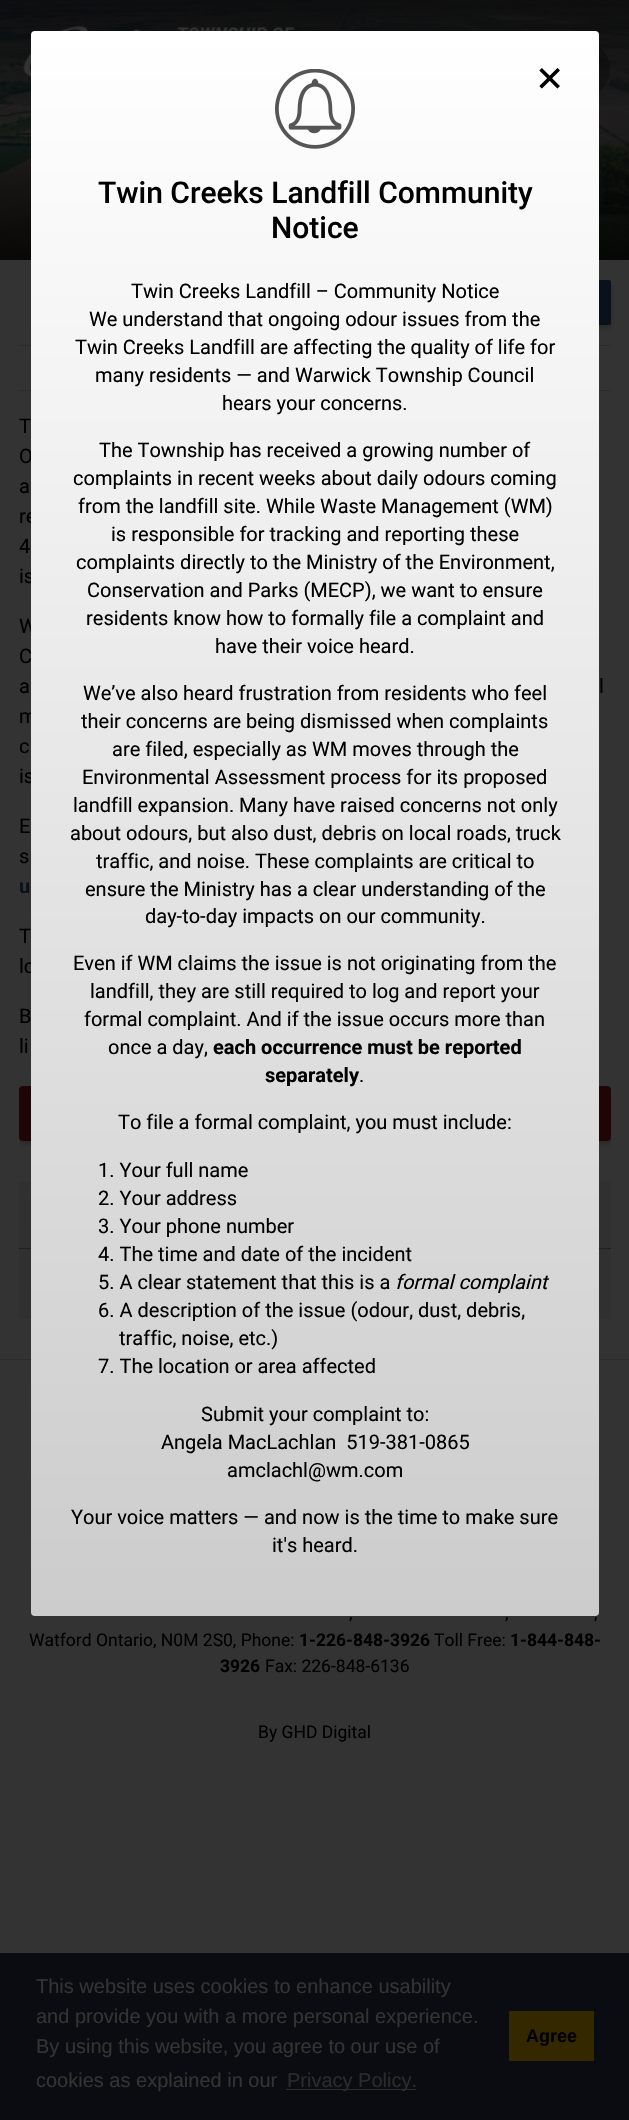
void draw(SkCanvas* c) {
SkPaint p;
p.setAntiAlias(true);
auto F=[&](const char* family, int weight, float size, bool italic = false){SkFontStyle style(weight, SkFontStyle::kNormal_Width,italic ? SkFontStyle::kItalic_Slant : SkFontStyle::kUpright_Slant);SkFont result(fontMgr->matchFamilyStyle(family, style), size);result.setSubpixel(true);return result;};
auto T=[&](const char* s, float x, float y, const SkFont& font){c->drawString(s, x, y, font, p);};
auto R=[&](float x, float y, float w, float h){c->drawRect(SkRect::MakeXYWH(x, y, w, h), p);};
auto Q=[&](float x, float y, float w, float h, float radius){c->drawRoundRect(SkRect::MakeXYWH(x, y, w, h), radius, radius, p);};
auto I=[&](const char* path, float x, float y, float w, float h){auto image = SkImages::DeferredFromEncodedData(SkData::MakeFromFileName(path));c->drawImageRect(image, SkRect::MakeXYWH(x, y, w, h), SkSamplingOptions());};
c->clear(0xff333333);
I("2.png",0,0,629,260);
{
const SkColor colors[] = {0x00000000,0xbf000000};
const float stops[] = {.5,1};
const SkPoint ends[] = {{315,0}, {315,260}};
p.setShader(SkGradientShader::MakeLinear(ends, colors, stops, 2, SkTileMode::kClamp));
p.setAlpha(255);
}
R(0,143,629,117);
p.setShader(nullptr);
p.setColor(0x33000000);
p.setMaskFilter(SkMaskFilter::MakeBlur(kNormal_SkBlurStyle, 2.5));
c->drawRoundRect(SkRect::MakeXYWH(493,283,118,45),2.5,2.5,p);
p.setMaskFilter(nullptr);
p.setColor(0xff09111b);
Q(493,280,118,45,2.5);
p.setColor(0xff2b2b2b);
R(19,345,592,1);
R(19,390,592,1);
{
const SkColor colors[] = {0xa6000000,0x00000000};
const float stops[] = {0,1};
const SkPoint ends[] = {{315,0}, {315,118}};
p.setShader(SkGradientShader::MakeLinear(ends, colors, stops, 2, SkTileMode::kClamp));
p.setAlpha(255);
}
R(0,0,629,105);
I("3.png",22,26,273,57);
p.setShader(nullptr);
p.setColor(0x4d000000);
c->drawCircle(581,69,30,p);
p.setStroke(true);
p.setStrokeWidth(1);
p.setColor(0x2e333333);
c->drawCircle(581,69,29.5,p);
auto f1 = F("Roboto",400,20);
p.setStroke(false);
p.setColor(0xff000000);
T("O",19,463,f1);
T("re",19,523,f1);
T("is",19,583,f1);
T("W",19,633,f1);
T("m",19,723,f1);
T("is",19,783,f1);
T("lo",19,973,f1);
c->save();
c->clipRect(SkRect::MakeXYWH(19,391,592,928));
p.setColor(0x33000000);
p.setMaskFilter(SkMaskFilter::MakeBlur(kNormal_SkBlurStyle, 2.5));
c->drawRoundRect(SkRect::MakeXYWH(19,1089,592,55),4,4,p);
p.setMaskFilter(nullptr);
c->restore();
p.setColor(0xff200506);
Q(19,1086,592,55,4);
p.setColor(0xff303030);
R(19,1181,592,138);
p.setColor(0xff1d1f21);
R(19,1248,592,1);
p.setColor(0xff2b2b2b);
R(0,1359,629,1);
{
const SkColor colors[] = {0xffffffff,0xffcccccc};
const float stops[] = {0,1};
const SkPoint ends[] = {{315,31}, {315,1616}};
p.setShader(SkGradientShader::MakeLinear(ends, colors, stops, 2, SkTileMode::kClamp));
p.setAlpha(255);
}
Q(31,31,568,1585,4);
auto f2 = F("DejaVu Sans",400,35);
p.setShader(nullptr);
p.setColor(0xff000000);
T("✕",535,91,f2);
I("1.png",275,69,80,80);
auto f3 = F("Roboto",500,30);
T("Twin Creeks Landfill Community",98,203,f3);
T("Notice",271,238,f3);
T("Twin Creeks Landfill – Community Notice",131,298,f1);
T("We understand that ongoing odour issues from the",89,326,f1);
T("Twin Creeks Landfill are affecting the quality of life for",75,354,f1);
T("many residents — and Warwick Township Council",95,382,f1);
T("hears your concerns.",222,410,f1);
T("The Township has received a growing number of",99,457,f1);
T("complaints in recent weeks about daily odours coming",73,485,f1);
T("from the landfill site. While Waste Management (WM)",78,513,f1);
T("is responsible for tracking and reporting these",111,541,f1);
T("complaints directly to the Ministry of the Environment,",76,569,f1);
T("Conservation and Parks (MECP), we want to ensure",87,597,f1);
T("residents know how to formally file a complaint and",86,625,f1);
T("have their voice heard.",215,653,f1);
T("We’ve also heard frustration from residents who feel",83,700,f1);
T("their concerns are being dismissed when complaints",81,728,f1);
T("are filed, especially as WM moves through the",112,756,f1);
T("Environmental Assessment process for its proposed",82,784,f1);
T("landfill expansion. Many have raised concerns not only",73,812,f1);
T("about odours, but also dust, debris on local roads, truck",70,840,f1);
T("traffic, and noise. These complaints are critical to",96,868,f1);
T("ensure the Ministry has a clear understanding of the",85,896,f1);
T("day-to-day impacts on our community.",145,923,f1);
T("Even if WM claims the issue is not originating from the",73,970,f1);
T("landfill, they are still required to log and report your",90,998,f1);
T("formal complaint. And if the issue occurs more than",84,1026,f1);
T("once a day,",108,1054,f1);
auto f4 = F("Roboto",700,20);
T("each occurrence must be reported",213,1054,f4);
T("separately",265,1082,f4);
T(".",359,1082,f1);
T("To file a formal complaint, you must include:",118,1129,f1);
T("1. Your full name",98,1177,f1);
T("2. Your address",98,1205,f1);
T("3. Your phone number",98,1233,f1);
T("4. The time and date of the incident",98,1261,f1);
T("5. A clear statement that this is a",98,1289,f1);
auto f5 = F("Roboto",400,20,true);
T("formal complaint",395,1289,f5);
T("6. A description of the issue (odour, dust, debris,",98,1317,f1);
T("traffic, noise, etc.)",119,1345,f1);
T("7. The location or area affected",98,1373,f1);
T("Submit your complaint to:",201,1421,f1);
T("Angela MacLachlan  519-381-0865",161,1449,f1);
T("amclachl@wm.com",227,1477,f1);
T("Your voice matters — and now is the time to make sure",71,1524,f1);
T("it's heard.",272,1552,f1);
T("T",19,433,f1);
T("a",19,493,f1);
T("4",19,553,f1);
T("C",19,663,f1);
T("a",19,693,f1);
T("l",599,693,f1);
T("c",19,753,f1);
T("E",19,833,f1);
T("s",19,863,f1);
p.setColor(0xff09111b);
T("u",19,893,f4);
p.setColor(0xff000000);
T("T",19,943,f1);
T("B",19,1023,f1);
T("li",19,1053,f1);
auto f6 = F("Roboto",400,17.5);
T(",",349,1619,f6);
T(",",505,1619,f6);
T(",",594,1619,f6);
T("Watford Ontario, N0M 2S0, Phone:",29,1646,f6);
auto f7 = F("Roboto",700,17.5);
T("1-226-848-3926",299,1646,f7);
T("Toll Free:",434,1646,f6);
T("1-844-848-",510,1646,f7);
T("3926",220,1672,f7);
T("Fax: 226-848-6136",265,1672,f6);
T("By GHD Digital",258,1738,f6);
p.setColor(0xff0b0c11);
R(0,1953,629,167);
auto f8 = F("Liberation Sans",400,20);
p.setColor(0xff333333);
T("This website uses cookies to enhance usability",36,1993,f8);
T("and provide you with a more personal experience.",36,2023,f8);
T("By using this website, you agree to our use of",36,2053,f8);
T("cookies as explained in our",36,2087,f8);
p.setColor(0xff2b2b2c);
R(286,2089,130,1);
T("Privacy Policy.",287,2087,f8);
p.setColor(0xff332800);
R(509,2011,85,50);
auto f9 = F("Liberation Sans",700,18);
p.setColor(0xff000000);
T("Agree",526,2042,f9);
}
